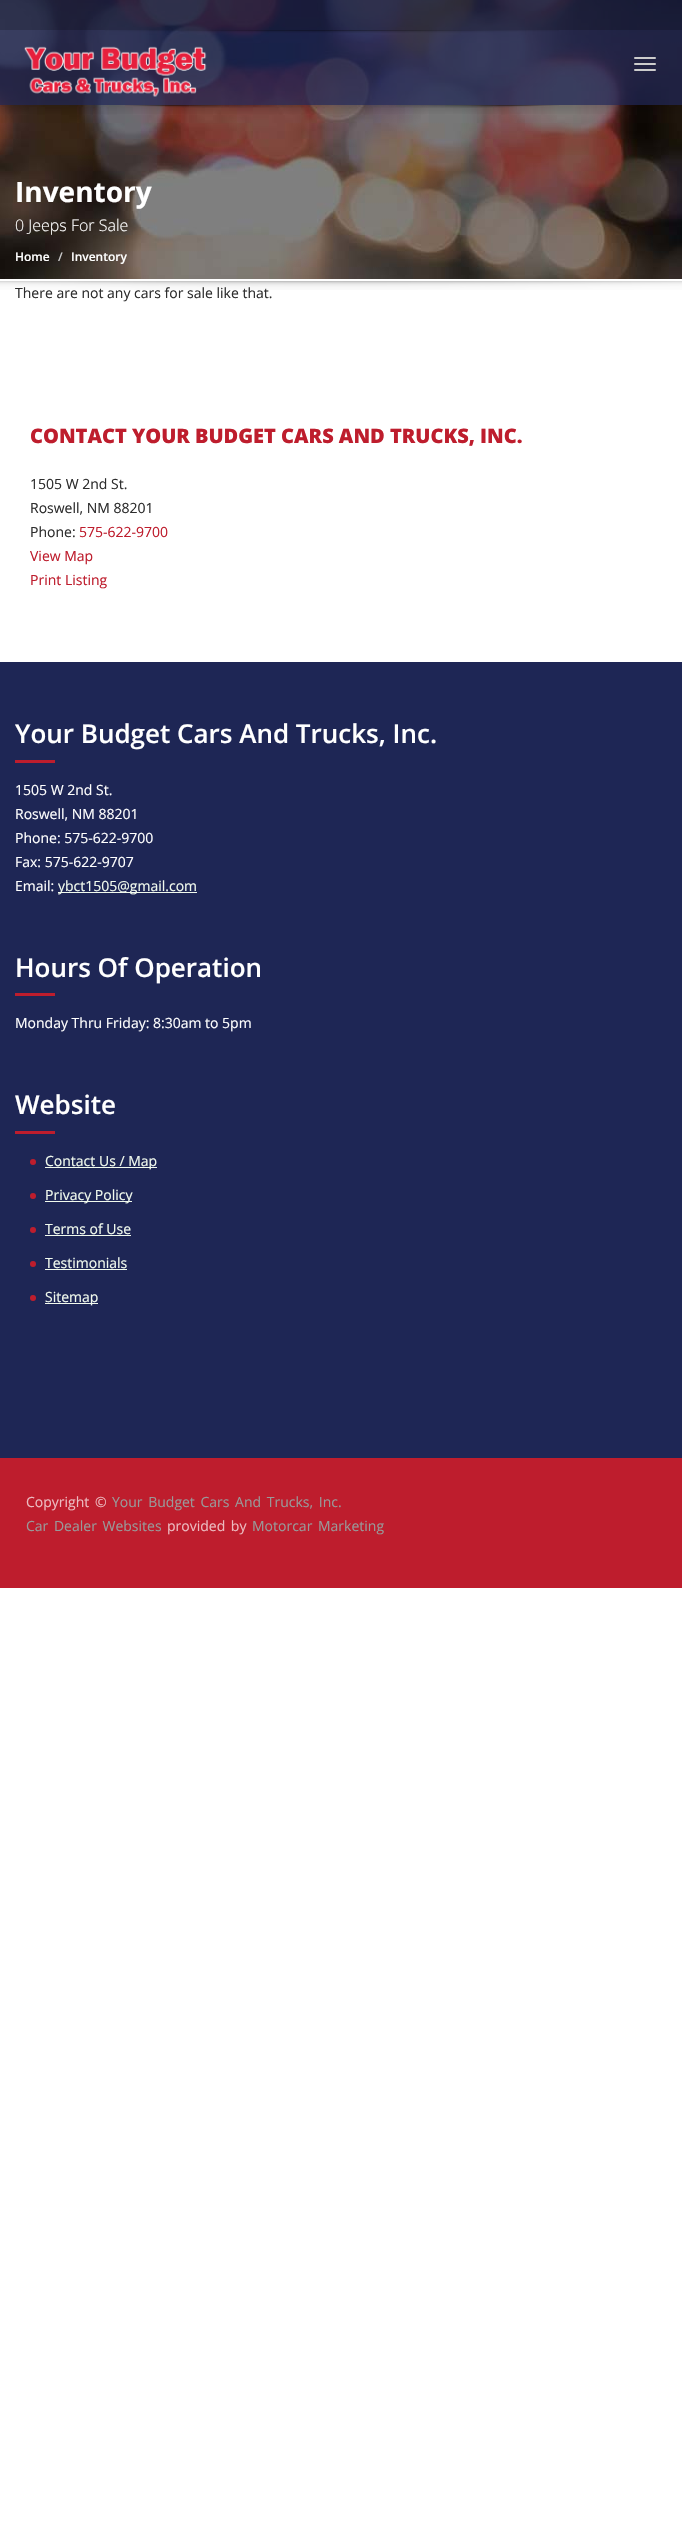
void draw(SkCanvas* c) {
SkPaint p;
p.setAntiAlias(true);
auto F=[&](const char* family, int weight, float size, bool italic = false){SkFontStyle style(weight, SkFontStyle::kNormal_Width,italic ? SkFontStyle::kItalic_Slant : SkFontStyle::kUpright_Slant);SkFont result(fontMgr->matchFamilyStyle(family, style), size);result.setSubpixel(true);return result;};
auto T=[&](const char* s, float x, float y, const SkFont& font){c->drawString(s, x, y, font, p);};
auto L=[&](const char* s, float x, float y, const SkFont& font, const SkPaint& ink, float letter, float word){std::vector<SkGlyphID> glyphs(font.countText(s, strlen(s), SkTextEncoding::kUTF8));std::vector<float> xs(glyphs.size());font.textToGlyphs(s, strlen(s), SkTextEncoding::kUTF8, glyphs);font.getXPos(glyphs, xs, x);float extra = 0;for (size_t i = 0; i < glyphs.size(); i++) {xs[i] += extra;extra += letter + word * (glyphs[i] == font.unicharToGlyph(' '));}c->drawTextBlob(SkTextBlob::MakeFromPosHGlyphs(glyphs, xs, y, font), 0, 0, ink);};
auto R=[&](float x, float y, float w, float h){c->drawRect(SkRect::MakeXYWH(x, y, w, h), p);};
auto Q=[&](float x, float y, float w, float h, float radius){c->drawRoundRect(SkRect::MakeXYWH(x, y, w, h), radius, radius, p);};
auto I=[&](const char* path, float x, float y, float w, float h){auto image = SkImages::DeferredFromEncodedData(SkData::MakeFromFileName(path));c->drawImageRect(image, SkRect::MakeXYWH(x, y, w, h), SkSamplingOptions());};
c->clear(0xffffffff);
I("4.png",0,0,682,279);
c->save();
c->clipRect(SkRect::MakeXYWH(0,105,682,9));
p.setColor(0x2e000000);
p.setMaskFilter(SkMaskFilter::MakeBlur(kNormal_SkBlurStyle, 6));
c->drawRect(SkRect::MakeXYWH(0,2,682,105),p);
p.setMaskFilter(nullptr);
c->restore();
p.setColor(0xb81e2655);
R(0,0,682,105);
p.setColor(0x33000000);
R(0,0,682,30);
I("1.png",105,30,454,3);
I("2.png",24,46,183,51);
p.setColor(0xffcccccc);
Q(634,57,22,2,1);
Q(634,63,22,2,1);
Q(634,69,22,2,1);
I("3.png",125,105,434,3);
auto f1 = F("Open Sans",700,28);
p.setColor(0xffffffff);
T("Inventory",15,202,f1);
auto f2 = F("Open Sans",300,16);
T("0 Jeeps For Sale",15,231,f2);
auto f3 = F("Open Sans",600,12);
T("Home",15,261,f3);
p.setColor(0xffcccccc);
T("/",58,261,f3);
p.setColor(0xffffffff);
T("Inventory",71,261,f3);
auto f4 = F("Open Sans",400,14);
p.setColor(0xff2d2d2d);
T("There are not any cars for sale like that.",15,298,f4);
I("5.png",0,281,682,9);
auto f5 = F("Open Sans",800,20);
p.setColor(0xffbe1d2d);
T("CONTACT YOUR BUDGET CARS AND TRUCKS, INC.",30,443,f5);
p.setColor(0xff2d2d2d);
T("1505 W 2nd St.",30,489,f4);
T("Roswell, NM 88201",30,513,f4);
T("Phone:",30,537,f4);
p.setColor(0xffbe1d2d);
T("575-622-9700",79,537,f4);
T("View Map",30,561,f4);
T("Print Listing",30,585,f4);
p.setColor(0xff1e2655);
R(0,662,682,796);
auto f6 = F("Open Sans",600,26);
p.setColor(0xffffffff);
T("Your Budget Cars And Trucks, Inc.",15,743,f6);
p.setColor(0xffbe1d2d);
R(15,760,40,3);
p.setColor(0xffffffff);
T("1505 W 2nd St.",15,795,f4);
T("Roswell, NM 88201",15,819,f4);
T("Phone: 575-622-9700",15,843,f4);
T("Fax: 575-622-9707",15,867,f4);
T("Email:",15,891,f4);
p.setColor(0xfff1faee);
R(58,892,139,1);
T("ybct1505@gmail.com",58,891,f4);
p.setColor(0xffffffff);
T("Hours Of Operation",15,977,f6);
p.setColor(0xffbe1d2d);
R(15,993,40,3);
p.setColor(0xffffffff);
T("Monday Thru Friday: 8:30am to 5pm",15,1028,f4);
T("Website",15,1114,f6);
p.setColor(0xffbe1d2d);
R(15,1131,40,3);
c->drawCircle(33,1162,3,p);
p.setColor(0xfff1faee);
R(45,1167,112,1);
T("Contact Us / Map",45,1166,f4);
p.setColor(0xffbe1d2d);
c->drawCircle(33,1196,3,p);
p.setColor(0xfff1faee);
R(45,1201,87,1);
T("Privacy Policy",45,1200,f4);
p.setColor(0xffbe1d2d);
c->drawCircle(33,1230,3,p);
p.setColor(0xfff1faee);
T("Terms of Use",45,1234,f4);
R(45,1235,86,1);
p.setColor(0xffbe1d2d);
c->drawCircle(33,1264,3,p);
p.setColor(0xfff1faee);
T("Testimonials",45,1268,f4);
R(45,1269,82,1);
p.setColor(0xffbe1d2d);
c->drawCircle(33,1298,3,p);
p.setColor(0xfff1faee);
R(45,1303,53,1);
T("Sitemap",45,1302,f4);
p.setColor(0xffbe1d2d);
R(0,1458,682,130);
p.setColor(0xffecbbc0);
L("Copyright ©",26,1507,f4,p,0,2);
p.setColor(0xff999999);
L("Your Budget Cars And Trucks, Inc.",112,1507,f4,p,0,2);
L("Car Dealer Websites",26,1531,f4,p,0,2);
p.setColor(0xffecbbc0);
L("provided by",167,1531,f4,p,0,2);
p.setColor(0xff999999);
L("Motorcar Marketing",252,1531,f4,p,0,2);
}
